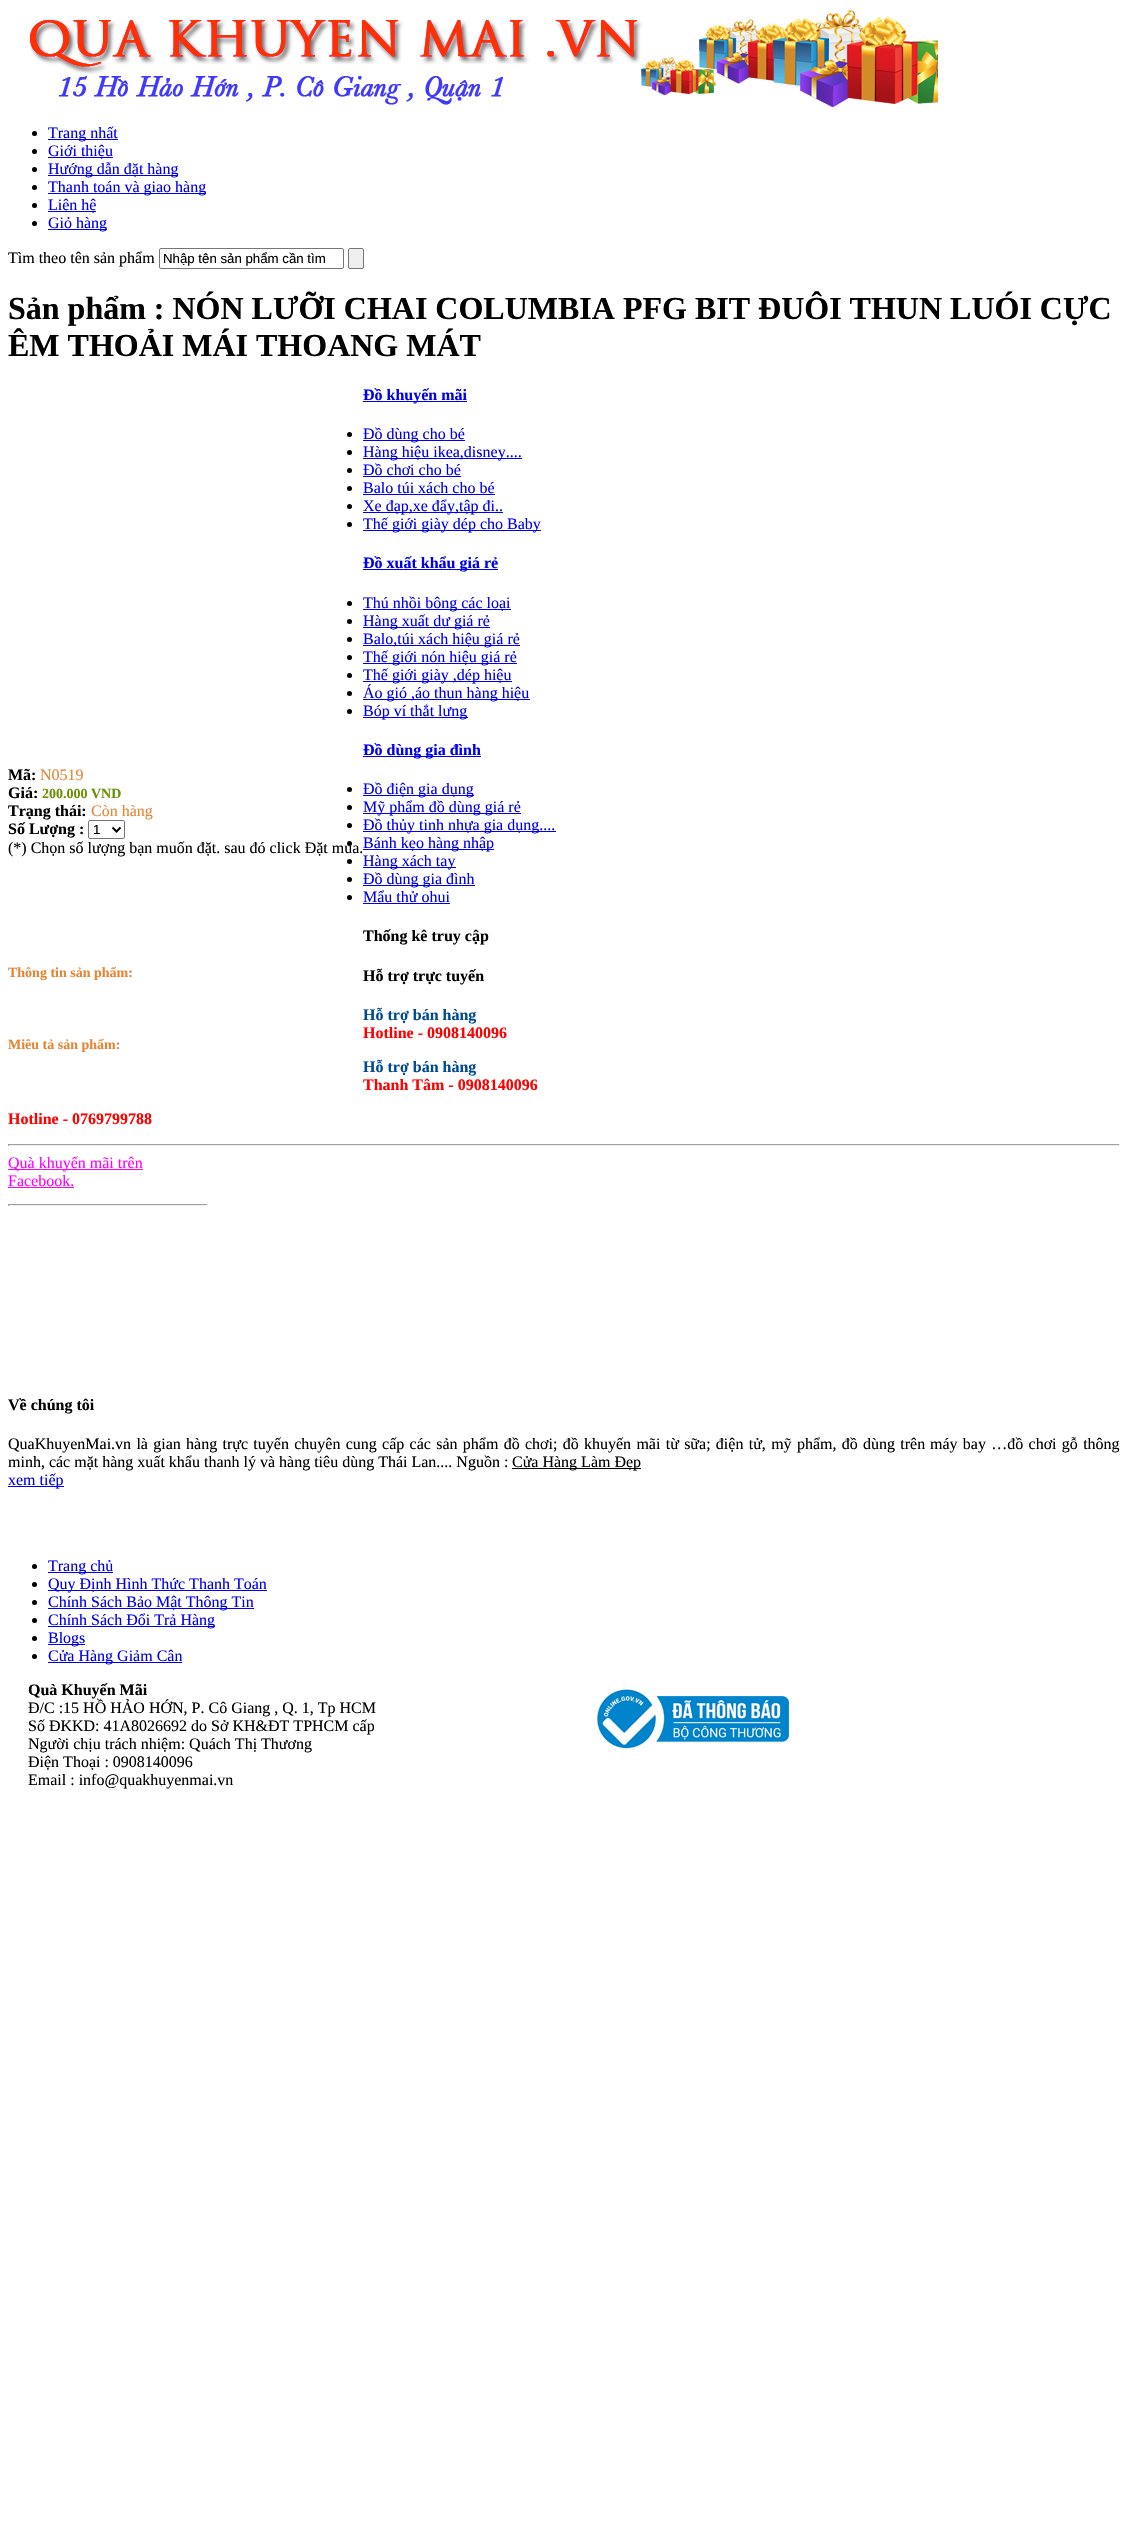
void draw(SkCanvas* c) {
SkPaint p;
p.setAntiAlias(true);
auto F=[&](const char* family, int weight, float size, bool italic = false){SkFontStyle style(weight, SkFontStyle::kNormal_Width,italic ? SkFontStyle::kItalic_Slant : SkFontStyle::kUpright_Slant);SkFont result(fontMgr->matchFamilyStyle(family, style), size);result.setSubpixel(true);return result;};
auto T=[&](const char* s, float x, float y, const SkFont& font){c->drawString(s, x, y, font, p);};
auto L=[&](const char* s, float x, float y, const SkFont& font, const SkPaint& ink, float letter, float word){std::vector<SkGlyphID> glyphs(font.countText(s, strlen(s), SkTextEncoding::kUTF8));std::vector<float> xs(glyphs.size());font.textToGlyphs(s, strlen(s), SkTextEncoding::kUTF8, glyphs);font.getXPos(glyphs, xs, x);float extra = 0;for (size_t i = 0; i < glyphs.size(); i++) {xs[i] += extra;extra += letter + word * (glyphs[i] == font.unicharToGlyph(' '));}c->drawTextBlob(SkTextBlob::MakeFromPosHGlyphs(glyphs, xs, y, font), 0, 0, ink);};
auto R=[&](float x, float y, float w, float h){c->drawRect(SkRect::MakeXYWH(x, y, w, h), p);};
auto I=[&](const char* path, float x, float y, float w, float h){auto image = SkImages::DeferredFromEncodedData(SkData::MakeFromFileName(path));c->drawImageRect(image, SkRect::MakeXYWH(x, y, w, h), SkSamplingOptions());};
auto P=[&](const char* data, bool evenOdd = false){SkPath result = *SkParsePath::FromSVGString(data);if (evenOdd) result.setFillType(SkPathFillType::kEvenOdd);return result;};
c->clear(0xffffffff);
I("1.png",25,8,913,99);
p.setColor(0xff000000);
c->drawCircle(34.5,133.5,2.5,p);
p.setColor(0xff0000ee);
R(48,139,70,1);
auto f1 = F("Liberation Serif",400,16);
T("Trang nhất",48,138,f1);
p.setColor(0xff000000);
c->drawCircle(34.5,151.5,2.5,p);
p.setColor(0xff0000ee);
R(48,157,65,1);
T("Giới thiệu",48,156,f1);
p.setColor(0xff000000);
c->drawCircle(34.5,169.5,2.5,p);
p.setColor(0xff0000ee);
R(48,175,130,1);
T("Hướng dẫn đặt hàng",48,174,f1);
p.setColor(0xff000000);
c->drawCircle(34.5,187.5,2.5,p);
p.setColor(0xff0000ee);
R(48,193,158,1);
T("Thanh toán và giao hàng",48,192,f1);
p.setColor(0xff000000);
c->drawCircle(34.5,205.5,2.5,p);
p.setColor(0xff0000ee);
R(48,211,48,1);
T("Liên hệ",48,210,f1);
p.setColor(0xff000000);
c->drawCircle(34.5,223.5,2.5,p);
p.setColor(0xff0000ee);
R(48,229,59,1);
T("Giỏ hàng",48,228,f1);
p.setColor(0xff000000);
T("Tìm theo tên sản phẩm",8,263,f1);
p.setStroke(true);
p.setStrokeWidth(1);
p.setColor(0xff767676);
c->drawRoundRect(SkRect::MakeXYWH(159.5,248.5,184,20),1.5,1.5,p);
auto f2 = F("Liberation Sans",400,13.25);
p.setStroke(false);
p.setColor(0xff000000);
T("Nhập tên sản phẩm cần tìm",163,263,f2);
p.setColor(0xffefefef);
c->drawRoundRect(SkRect::MakeXYWH(348.5,248.5,15,20),1.5,1.5,p);
p.setStroke(true);
p.setColor(0xff767676);
c->drawRoundRect(SkRect::MakeXYWH(348.5,248.5,15,20),1.5,1.5,p);
auto f3 = F("Liberation Serif",700,32);
p.setStroke(false);
p.setColor(0xff000000);
T("Sản phẩm : NÓN LƯỠI CHAI COLUMBIA PFG BIT ĐUÔI THUN LUÓI CỰC",8,319,f3);
T("ÊM THOẢI MÁI THOANG MÁT",8,356,f3);
auto f4 = F("Liberation Serif",700,16);
T("Mã:",8,780,f4);
p.setColor(0xffe48636);
T("N0519",40,780,f1);
p.setColor(0xff000000);
T("Giá:",8,798,f4);
auto f5 = F("Liberation Serif",700,14);
p.setColor(0xff698f03);
T("200.000 VND",42,798,f5);
p.setColor(0xff000000);
T("Trạng thái:",8,816,f4);
p.setColor(0xffe48636);
T("Còn hàng",91,816,f1);
p.setColor(0xff000000);
T("Số Lượng :",8,834,f4);
p.setStroke(true);
p.setColor(0xff767676);
c->drawRoundRect(SkRect::MakeXYWH(88.5,820.5,36,18),1.5,1.5,p);
p.setStrokeWidth(2);
p.setColor(0xff000000);
c->drawPath(P("M112.5 827.5l4 4l4-4"),p);
p.setStroke(false);
T("1",93,834,f2);
T("(*) Chọn số lượng bạn muốn đặt. sau đó click Đặt mua.",8,853,f1);
p.setColor(0xffe48636);
T("Thông tin sản phẩm:",8,977,f5);
T("Miêu tả sản phẩm:",8,1049,f5);
p.setColor(0xff0000ee);
R(363,401,104,1);
T("Đồ khuyến mãi",363,400,f4);
p.setColor(0xff000000);
c->drawCircle(349.5,434.5,2.5,p);
p.setColor(0xff0000ee);
R(363,440,102,1);
T("Đồ dùng cho bé",363,439,f1);
p.setColor(0xff000000);
c->drawCircle(349.5,452.5,2.5,p);
p.setColor(0xff0000ee);
R(363,458,159,1);
T("Hàng hiệu ikea,disney....",363,457,f1);
p.setColor(0xff000000);
c->drawCircle(349.5,470.5,2.5,p);
p.setColor(0xff0000ee);
T("Đồ chơi cho bé",363,475,f1);
R(363,476,98,1);
p.setColor(0xff000000);
c->drawCircle(349.5,488.5,2.5,p);
p.setColor(0xff0000ee);
T("Balo túi xách cho bé",363,493,f1);
R(363,494,132,1);
p.setColor(0xff000000);
c->drawCircle(349.5,506.5,2.5,p);
p.setColor(0xff0000ee);
R(363,512,140,1);
T("Xe đạp,xe đẩy,tập đi..",363,511,f1);
p.setColor(0xff000000);
c->drawCircle(349.5,524.5,2.5,p);
p.setColor(0xff0000ee);
R(363,530,178,1);
T("Thế giới giày dép cho Baby",363,529,f1);
R(363,569,135,1);
T("Đồ xuất khẩu giá rẻ",363,568,f4);
p.setColor(0xff000000);
c->drawCircle(349.5,603.5,2.5,p);
p.setColor(0xff0000ee);
R(363,609,148,1);
T("Thú nhồi bông các loại",363,608,f1);
p.setColor(0xff000000);
c->drawCircle(349.5,621.5,2.5,p);
p.setColor(0xff0000ee);
R(363,627,127,1);
T("Hàng xuất dư giá rẻ",363,626,f1);
p.setColor(0xff000000);
c->drawCircle(349.5,639.5,2.5,p);
p.setColor(0xff0000ee);
R(363,645,157,1);
T("Balo,túi xách hiệu giá rẻ",363,644,f1);
p.setColor(0xff000000);
c->drawCircle(349.5,657.5,2.5,p);
p.setColor(0xff0000ee);
R(363,663,154,1);
T("Thế giới nón hiệu giá rẻ",363,662,f1);
p.setColor(0xff000000);
c->drawCircle(349.5,675.5,2.5,p);
p.setColor(0xff0000ee);
R(363,681,149,1);
T("Thế giới giày ,dép hiệu",363,680,f1);
p.setColor(0xff000000);
c->drawCircle(349.5,693.5,2.5,p);
p.setColor(0xff0000ee);
R(363,699,167,1);
T("Áo gió ,áo thun hàng hiệu",363,698,f1);
p.setColor(0xff000000);
c->drawCircle(349.5,711.5,2.5,p);
p.setColor(0xff0000ee);
R(363,717,105,1);
T("Bóp ví thắt lưng",363,716,f1);
R(363,756,118,1);
T("Đồ dùng gia đình",363,755,f4);
p.setColor(0xff000000);
c->drawCircle(349.5,789.5,2.5,p);
p.setColor(0xff0000ee);
R(363,795,111,1);
T("Đồ điện gia dụng",363,794,f1);
p.setColor(0xff000000);
c->drawCircle(349.5,807.5,2.5,p);
p.setColor(0xff0000ee);
R(363,813,158,1);
T("Mỹ phẩm đồ dùng giá rẻ",363,812,f1);
p.setColor(0xff000000);
c->drawCircle(349.5,825.5,2.5,p);
p.setColor(0xff0000ee);
R(363,831,193,1);
T("Đồ thủy tinh nhựa gia dụng....",363,830,f1);
p.setColor(0xff000000);
c->drawCircle(349.5,843.5,2.5,p);
p.setColor(0xff0000ee);
R(363,849,131,1);
T("Bánh kẹo hàng nhập",363,848,f1);
p.setColor(0xff000000);
c->drawCircle(349.5,861.5,2.5,p);
p.setColor(0xff0000ee);
R(363,867,93,1);
T("Hàng xách tay",363,866,f1);
p.setColor(0xff000000);
c->drawCircle(349.5,879.5,2.5,p);
p.setColor(0xff0000ee);
R(363,885,112,1);
T("Đồ dùng gia đình",363,884,f1);
p.setColor(0xff000000);
c->drawCircle(349.5,897.5,2.5,p);
p.setColor(0xff0000ee);
T("Mẩu thử ohui",363,902,f1);
R(363,903,87,1);
p.setColor(0xff000000);
T("Thống kê truy cập",363,941,f4);
T("Hỗ trợ trực tuyến",363,981,f4);
p.setColor(0xff004993);
T("Hỗ trợ bán hàng",363,1020,f4);
p.setColor(0xffff0000);
T("Hotline - 0908140096",363,1038,f4);
p.setColor(0xff004993);
T("Hỗ trợ bán hàng",363,1072,f4);
p.setColor(0xffff0000);
T("Thanh Tâm - 0908140096",363,1090,f4);
T("Hotline - 0769799788",8,1124,f4);
p.setColor(0xff9f9f9f);
R(8,1144,1112,1);
p.setColor(0xffeeeeee);
R(1119,1144,1,2);
R(8,1145,1112,1);
p.setColor(0xff9f9f9f);
R(8,1144,1,2);
p.setColor(0xffff00ff);
R(8,1169,135,1);
T("Quà khuyến mãi trên",8,1168,f1);
T("Facebook.",8,1186,f1);
R(8,1187,66,1);
p.setColor(0xff9f9f9f);
R(8,1204,200,1);
p.setColor(0xffeeeeee);
R(207,1204,1,2);
R(8,1205,200,1);
p.setColor(0xff9f9f9f);
R(8,1204,1,2);
p.setColor(0xff000000);
T("Về chúng tôi",8,1410,f4);
L("QuaKhuyenMai.vn là gian hàng trực tuyến chuyên cung cấp các sản phẩm đồ chơi; đồ khuyến mãi từ sữa; điện tử, mỹ phẩm, đồ dùng trên",8,1449,f1,p,0,1.3);
L("máy bay …đồ chơi gỗ thông",930,1449,f1,p,0,1.3);
T("minh, các mặt hàng xuất khẩu thanh lý và hàng tiêu dùng Thái Lan.... Nguồn :",8,1467,f1);
R(512,1468,129,1);
T("Cửa Hàng Làm Đẹp",512,1467,f1);
p.setColor(0xff0000ee);
R(8,1486,56,1);
T("xem tiếp",8,1485,f1);
p.setColor(0xff000000);
c->drawCircle(34.5,1566.5,2.5,p);
p.setColor(0xff0000ee);
R(48,1572,65,1);
T("Trang chủ",48,1571,f1);
p.setColor(0xff000000);
c->drawCircle(34.5,1584.5,2.5,p);
p.setColor(0xff0000ee);
R(48,1590,219,1);
T("Quy Định Hình Thức Thanh Toán",48,1589,f1);
p.setColor(0xff000000);
c->drawCircle(34.5,1602.5,2.5,p);
p.setColor(0xff0000ee);
R(48,1608,206,1);
T("Chính Sách Bảo Mật Thông Tin",48,1607,f1);
p.setColor(0xff000000);
c->drawCircle(34.5,1620.5,2.5,p);
p.setColor(0xff0000ee);
R(48,1626,167,1);
T("Chính Sách Đổi Trả Hàng",48,1625,f1);
p.setColor(0xff000000);
c->drawCircle(34.5,1638.5,2.5,p);
p.setColor(0xff0000ee);
R(48,1644,37,1);
T("Blogs",48,1643,f1);
p.setColor(0xff000000);
c->drawCircle(34.5,1656.5,2.5,p);
p.setColor(0xff0000ee);
R(48,1662,134,1);
T("Cửa Hàng Giảm Cân",48,1661,f1);
p.setColor(0xff000000);
T("Quà Khuyến Mãi",28,1695,f4);
T("Đ/C :15 HỒ HẢO HỚN, P. Cô Giang , Q. 1, Tp HCM",28,1713,f1);
T("Số ĐKKD: 41A8026692 do Sở KH&ĐT TPHCM cấp",28,1731,f1);
T("Người chịu trách nhiệm: Quách Thị Thương",28,1749,f1);
T("Điện Thoại : 0908140096",28,1767,f1);
T("Email : info@quakhuyenmai.vn",28,1785,f1);
I("2.png",597,1689,192,60);
}
